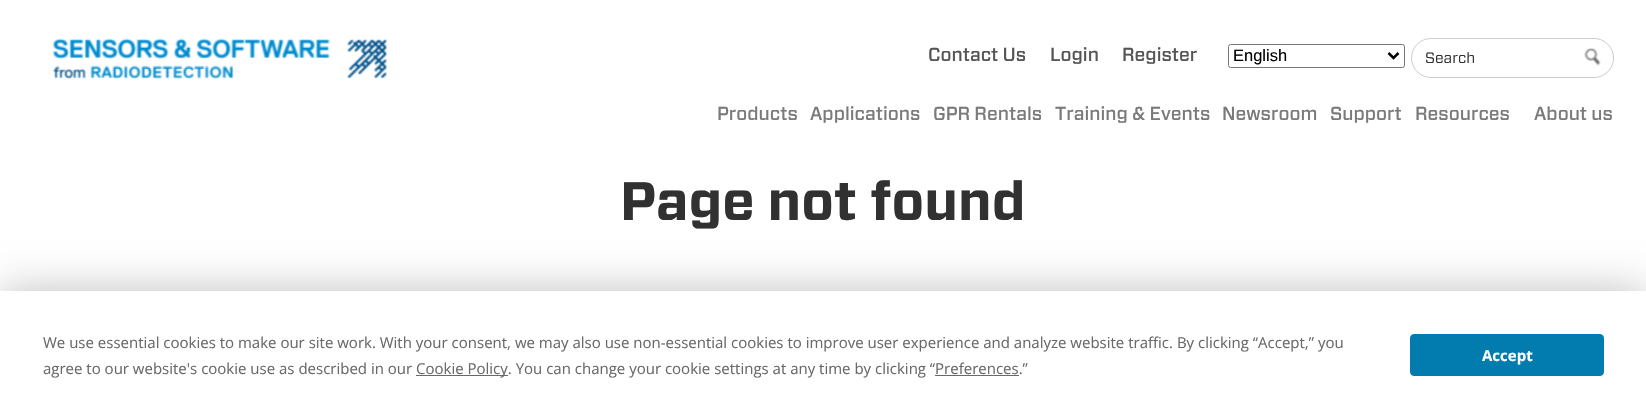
void draw(SkCanvas* c) {
SkPaint p;
p.setAntiAlias(true);
auto F=[&](const char* family, int weight, float size, bool italic = false){SkFontStyle style(weight, SkFontStyle::kNormal_Width,italic ? SkFontStyle::kItalic_Slant : SkFontStyle::kUpright_Slant);SkFont result(fontMgr->matchFamilyStyle(family, style), size);result.setSubpixel(true);return result;};
auto T=[&](const char* s, float x, float y, const SkFont& font){c->drawString(s, x, y, font, p);};
auto R=[&](float x, float y, float w, float h){c->drawRect(SkRect::MakeXYWH(x, y, w, h), p);};
auto I=[&](const char* path, float x, float y, float w, float h){auto image = SkImages::DeferredFromEncodedData(SkData::MakeFromFileName(path));c->drawImageRect(image, SkRect::MakeXYWH(x, y, w, h), SkSamplingOptions());};
auto P=[&](const char* data, bool evenOdd = false){SkPath result = *SkParsePath::FromSVGString(data);if (evenOdd) result.setFillType(SkPathFillType::kEvenOdd);return result;};
c->clear(0xffffffff);
I("1.png",52,38,335,41);
auto f1 = F("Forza",500,18.75);
p.setColor(0xff555555);
T("Contact Us",928,61,f1);
T("Login",1050,61,f1);
T("Register",1122,61,f1);
p.setStroke(true);
p.setStrokeWidth(1);
p.setColor(0xff767676);
c->drawRoundRect(SkRect::MakeXYWH(1228.5,44.5,176,23),2,2,p);
p.setStrokeWidth(2.5);
p.setColor(0xff000000);
c->drawPath(P("M1388.5 53l5 5l5-5"),p);
auto f2 = F("Liberation Sans",400,16.5);
p.setStroke(false);
T("English",1233,61,f2);
p.setStroke(true);
p.setStrokeWidth(1);
p.setColor(0xffcccccc);
c->drawRoundRect(SkRect::MakeXYWH(1411.5,38.5,202,39),19.5,19.5,p);
auto f3 = F("Forza",400,15);
p.setStroke(false);
p.setColor(0xff313131);
T("Search",1425,63,f3);
I("2.png",1584,48,17,18);
p.setColor(0xff7a7a7a);
T("Products",717,120,f1);
T("Applications",810,120,f1);
T("GPR Rentals",933,120,f1);
T("Training & Events",1055,120,f1);
T("Newsroom",1222,120,f1);
T("Support",1330,120,f1);
T("Resources",1415,120,f1);
T("About us",1534,120,f1);
auto f4 = F("Forza",700,53.75);
p.setColor(0xff313131);
T("Page not found",620,220,f4);
p.setColor(0x40000000);
p.setMaskFilter(SkMaskFilter::MakeBlur(kNormal_SkBlurStyle, 22));
c->drawRect(SkRect::MakeXYWH(0,291,1646,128),p);
p.setMaskFilter(nullptr);
p.setColor(0xffffffff);
R(0,291,1646,127);
auto f5 = F("Open Sans",400,15);
p.setColor(0xff696969);
T("We use essential cookies to make our site work. With your consent, we may also use non-essential cookies to improve user experience and analyze website traffic. By clicking “Accept,” you",43,348,f5);
T("agree to our website's cookie use as described in our",43,374,f5);
R(416,375,92,1);
T("Cookie Policy. You can change your cookie settings at any time by clicking “Preferences.”",416,374,f5);
R(935,375,84,1);
p.setColor(0xff027caf);
c->drawRoundRect(SkRect::MakeXYWH(1410.5,334.5,193,41),3.5,3.5,p);
p.setStroke(true);
c->drawRoundRect(SkRect::MakeXYWH(1410.5,334.5,193,41),3.5,3.5,p);
auto f6 = F("Open Sans",700,15);
p.setStroke(false);
p.setColor(0xffffffff);
T("Accept",1482,361,f6);
}
